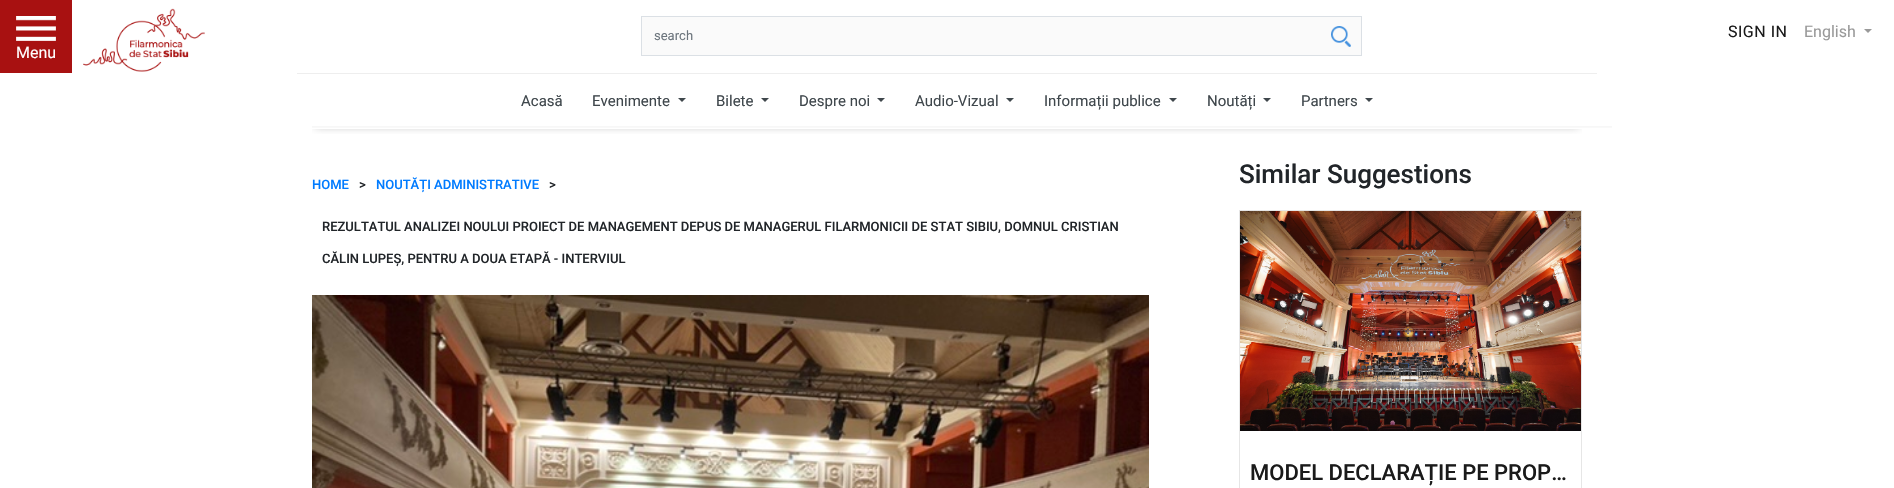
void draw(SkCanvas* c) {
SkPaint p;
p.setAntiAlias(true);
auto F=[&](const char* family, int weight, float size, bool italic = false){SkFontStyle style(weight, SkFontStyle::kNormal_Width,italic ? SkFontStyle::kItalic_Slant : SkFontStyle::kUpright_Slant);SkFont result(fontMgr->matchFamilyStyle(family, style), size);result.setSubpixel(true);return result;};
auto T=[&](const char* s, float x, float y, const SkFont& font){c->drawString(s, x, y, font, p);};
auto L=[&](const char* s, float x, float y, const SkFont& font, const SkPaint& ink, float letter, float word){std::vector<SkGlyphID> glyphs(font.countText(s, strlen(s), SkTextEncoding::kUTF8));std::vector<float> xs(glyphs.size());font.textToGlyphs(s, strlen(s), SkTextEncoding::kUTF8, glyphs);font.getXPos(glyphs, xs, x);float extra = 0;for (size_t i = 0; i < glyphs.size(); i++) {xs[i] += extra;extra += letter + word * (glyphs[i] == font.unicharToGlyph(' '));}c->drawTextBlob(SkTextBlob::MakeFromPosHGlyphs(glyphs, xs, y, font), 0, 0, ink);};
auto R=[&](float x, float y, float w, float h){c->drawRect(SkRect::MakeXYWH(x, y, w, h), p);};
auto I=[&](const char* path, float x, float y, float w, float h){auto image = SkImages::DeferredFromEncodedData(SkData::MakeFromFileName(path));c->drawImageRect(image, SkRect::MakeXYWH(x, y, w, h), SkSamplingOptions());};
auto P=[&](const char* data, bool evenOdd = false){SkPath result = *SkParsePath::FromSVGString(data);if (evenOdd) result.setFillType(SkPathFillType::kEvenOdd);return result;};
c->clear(0xffffffff);
I("1.png",83,8,122,64);
p.setColor(0xfffafafa);
R(642,17,719,38);
I("2.png",1331,26,20,21);
p.setStroke(true);
p.setStrokeWidth(1);
p.setColor(0xffdbe0e5);
c->drawRect(SkRect::MakeXYWH(641.5,16.5,720,39),p);
auto f1 = F("Roboto",400,13);
p.setStroke(false);
p.setColor(0xff6c757d);
T("search",654,40,f1);
auto f2 = F("Roboto",400,16);
p.setColor(0xff1a1a1a);
L("SIGN IN",1728,37,f2,p,.5,0);
p.setColor(0xff999999);
T("English",1804,37,f2);
c->drawPath(P("M1864 29h8l-4 4z"),p);
p.setColor(0xffa81111);
R(0,0,72,73);
I("3.png",16,16,40,25);
p.setColor(0xffffffff);
T("Menu",16,58,f2);
c->save();
c->clipRect(SkRect::MakeXYWH(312,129,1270,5));
p.setColor(0x57111111);
p.setMaskFilter(SkMaskFilter::MakeBlur(kNormal_SkBlurStyle, 5));
c->drawRect(SkRect::MakeXYWH(315,106,1264,20),p);
p.setMaskFilter(nullptr);
c->restore();
p.setColor(0xffeeeeee);
R(297,73,1300,1);
auto f3 = F("Roboto",400,15);
p.setColor(0xff3f474c);
T("Acasă",521,106,f3);
T("Evenimente",592,106,f3);
c->drawPath(P("M678 98h8l-4 4z"),p);
T("Bilete",716,106,f3);
c->drawPath(P("M761 98h8l-4 4z"),p);
T("Despre noi",799,106,f3);
c->drawPath(P("M877 98h8l-4 4z"),p);
T("Audio-Vizual",915,106,f3);
c->drawPath(P("M1006 98h8l-4 4z"),p);
T("Informații publice",1044,106,f3);
c->drawPath(P("M1169 98h8l-4 4z"),p);
T("Noutăți",1207,106,f3);
c->drawPath(P("M1263 98h8l-4 4z"),p);
T("Partners",1301,106,f3);
c->drawPath(P("M1365 98h8l-4 4z"),p);
{
const SkColor colors[] = {0xfff7f7f7,0xffffffff};
const float stops[] = {.39,.75};
const SkPoint ends[] = {{962,126}, {962,129}};
p.setShader(SkGradientShader::MakeLinear(ends, colors, stops, 2, SkTileMode::kClamp));
p.setAlpha(255);
}
R(312,126,1300,2);
auto f4 = F("Roboto",500,13);
p.setShader(nullptr);
p.setColor(0xff007bff);
T("HOME",312,189,f4);
p.setColor(0xff212529);
T(">",359,189,f4);
p.setColor(0xff007bff);
T("NOUTĂȚI ADMINISTRATIVE",376,189,f4);
p.setColor(0xff212529);
T(">",549,189,f4);
T("REZULTATUL ANALIZEI NOULUI PROIECT DE MANAGEMENT DEPUS DE MANAGERUL FILARMONICII DE STAT SIBIU, DOMNUL CRISTIAN",322,231,f4);
T("CĂLIN LUPEȘ, PENTRU A DOUA ETAPĂ - INTERVIUL",322,263,f4);
I("4.png",312,295,837,193);
auto f5 = F("Roboto",500,26);
T("Similar Suggestions",1239,183,f5);
p.setStroke(true);
p.setColor(0xffe6e6e6);
c->drawRect(SkRect::MakeXYWH(1239.5,210.5,342,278),p);
I("5.png",1240,211,341,220);
auto f6 = F("Roboto",500,22);
p.setStroke(false);
p.setColor(0xff1a1a1a);
T("MODEL DECLARAȚIE PE PROP…",1250,480,f6);
}
